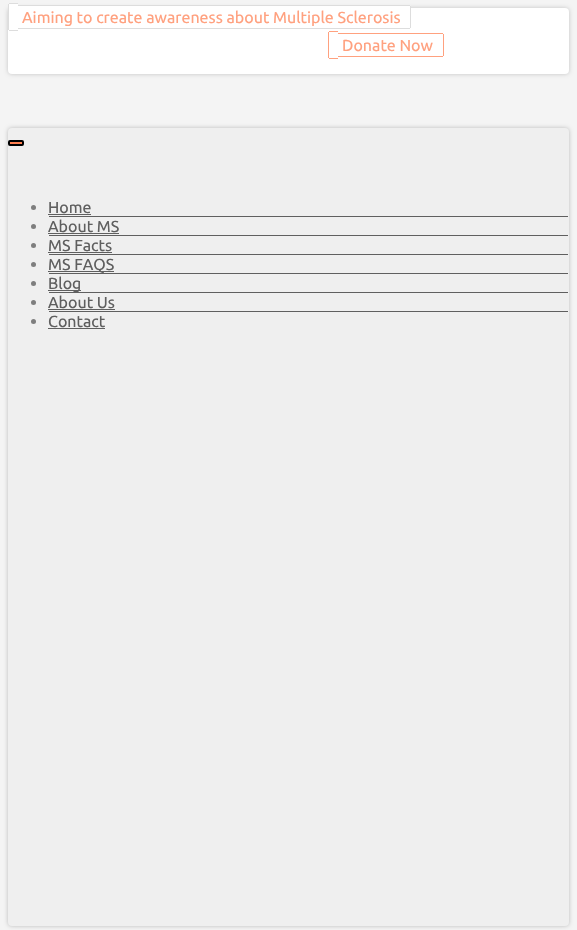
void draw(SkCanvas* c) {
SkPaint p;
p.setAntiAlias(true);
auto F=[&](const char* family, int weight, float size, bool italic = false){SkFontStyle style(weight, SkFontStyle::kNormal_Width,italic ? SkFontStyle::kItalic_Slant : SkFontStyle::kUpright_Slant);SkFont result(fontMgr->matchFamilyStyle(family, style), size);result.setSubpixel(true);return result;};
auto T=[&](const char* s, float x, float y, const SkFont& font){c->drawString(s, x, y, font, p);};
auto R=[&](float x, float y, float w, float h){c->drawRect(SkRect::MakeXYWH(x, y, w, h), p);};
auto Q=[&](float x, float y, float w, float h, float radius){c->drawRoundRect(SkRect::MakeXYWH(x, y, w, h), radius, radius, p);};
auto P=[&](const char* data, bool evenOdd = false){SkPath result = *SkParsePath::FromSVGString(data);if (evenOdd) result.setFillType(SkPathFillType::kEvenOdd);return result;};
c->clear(0xfff4f4f4);
p.setColor(0xffc3c3c3);
p.setMaskFilter(SkMaskFilter::MakeBlur(kNormal_SkBlurStyle, 2));
c->drawRoundRect(SkRect::MakeXYWH(8,8,561,66),4,4,p);
p.setMaskFilter(nullptr);
p.setColor(0xffffffff);
Q(8,8,561,66,4);
c->drawPath(P("M18 5h391c1 0 2 1 2 2v20c0 1-1 2-2 2h-391z"),p);
auto f1 = F("Ubuntu",400,16);
p.setColor(0xffffa17f);
T("Aiming to create awareness about Multiple Sclerosis",22,23,f1);
p.setColor(0xffffffff);
c->drawPath(P("M10 3h8v28h-8c-1 0-2-1-2-2v-24c0-1 1-2 2-2z"),p);
p.setColor(0xffdddddd);
R(9,3,9,1);
R(9,30,9,1);
R(8,4,1,26);
R(18,5,392,1);
R(410,6,1,22);
R(18,28,392,1);
p.setColor(0xffffa17f);
T("Donate Now",342,51,f1);
R(329,31,9,1);
R(329,58,9,1);
R(328,32,1,26);
R(338,33,105,1);
R(443,34,1,22);
R(338,56,105,1);
p.setColor(0xffbbbbbb);
p.setMaskFilter(SkMaskFilter::MakeBlur(kNormal_SkBlurStyle, 2));
c->drawRoundRect(SkRect::MakeXYWH(8,128,561,798),4,4,p);
p.setMaskFilter(nullptr);
p.setColor(0xffefefef);
Q(8,128,561,798,4);
p.setColor(0xffff7f50);
c->drawRoundRect(SkRect::MakeXYWH(9,141,14,4),1,1,p);
p.setStroke(true);
p.setStrokeWidth(2);
p.setColor(0xff000000);
c->drawRoundRect(SkRect::MakeXYWH(9,141,14,4),1,1,p);
p.setStroke(false);
p.setColor(0xff7e7e7e);
c->drawCircle(33.5,207.5,2.5,p);
p.setColor(0xff5f5f5f);
T("Home",48,213,f1);
R(48,214,43,1);
R(49,216,519,1);
p.setColor(0xff7e7e7e);
c->drawCircle(33.5,226.5,2.5,p);
p.setColor(0xff5f5f5f);
T("About MS",48,232,f1);
R(48,233,71,1);
R(49,235,519,1);
p.setColor(0xff7e7e7e);
c->drawCircle(33.5,245.5,2.5,p);
p.setColor(0xff5f5f5f);
T("MS Facts",48,251,f1);
R(48,252,64,1);
R(49,254,519,1);
p.setColor(0xff7e7e7e);
c->drawCircle(33.5,264.5,2.5,p);
p.setColor(0xff5f5f5f);
R(48,271,66,1);
T("MS FAQS",48,270,f1);
R(49,273,519,1);
p.setColor(0xff7e7e7e);
c->drawCircle(33.5,283.5,2.5,p);
p.setColor(0xff5f5f5f);
R(48,290,33,1);
T("Blog",48,289,f1);
R(49,292,519,1);
p.setColor(0xff7e7e7e);
c->drawCircle(33.5,302.5,2.5,p);
p.setColor(0xff5f5f5f);
T("About Us",48,308,f1);
R(48,309,67,1);
R(49,311,519,1);
p.setColor(0xff7e7e7e);
c->drawCircle(33.5,321.5,2.5,p);
p.setColor(0xff5f5f5f);
T("Contact",48,327,f1);
R(48,328,57,1);
}
